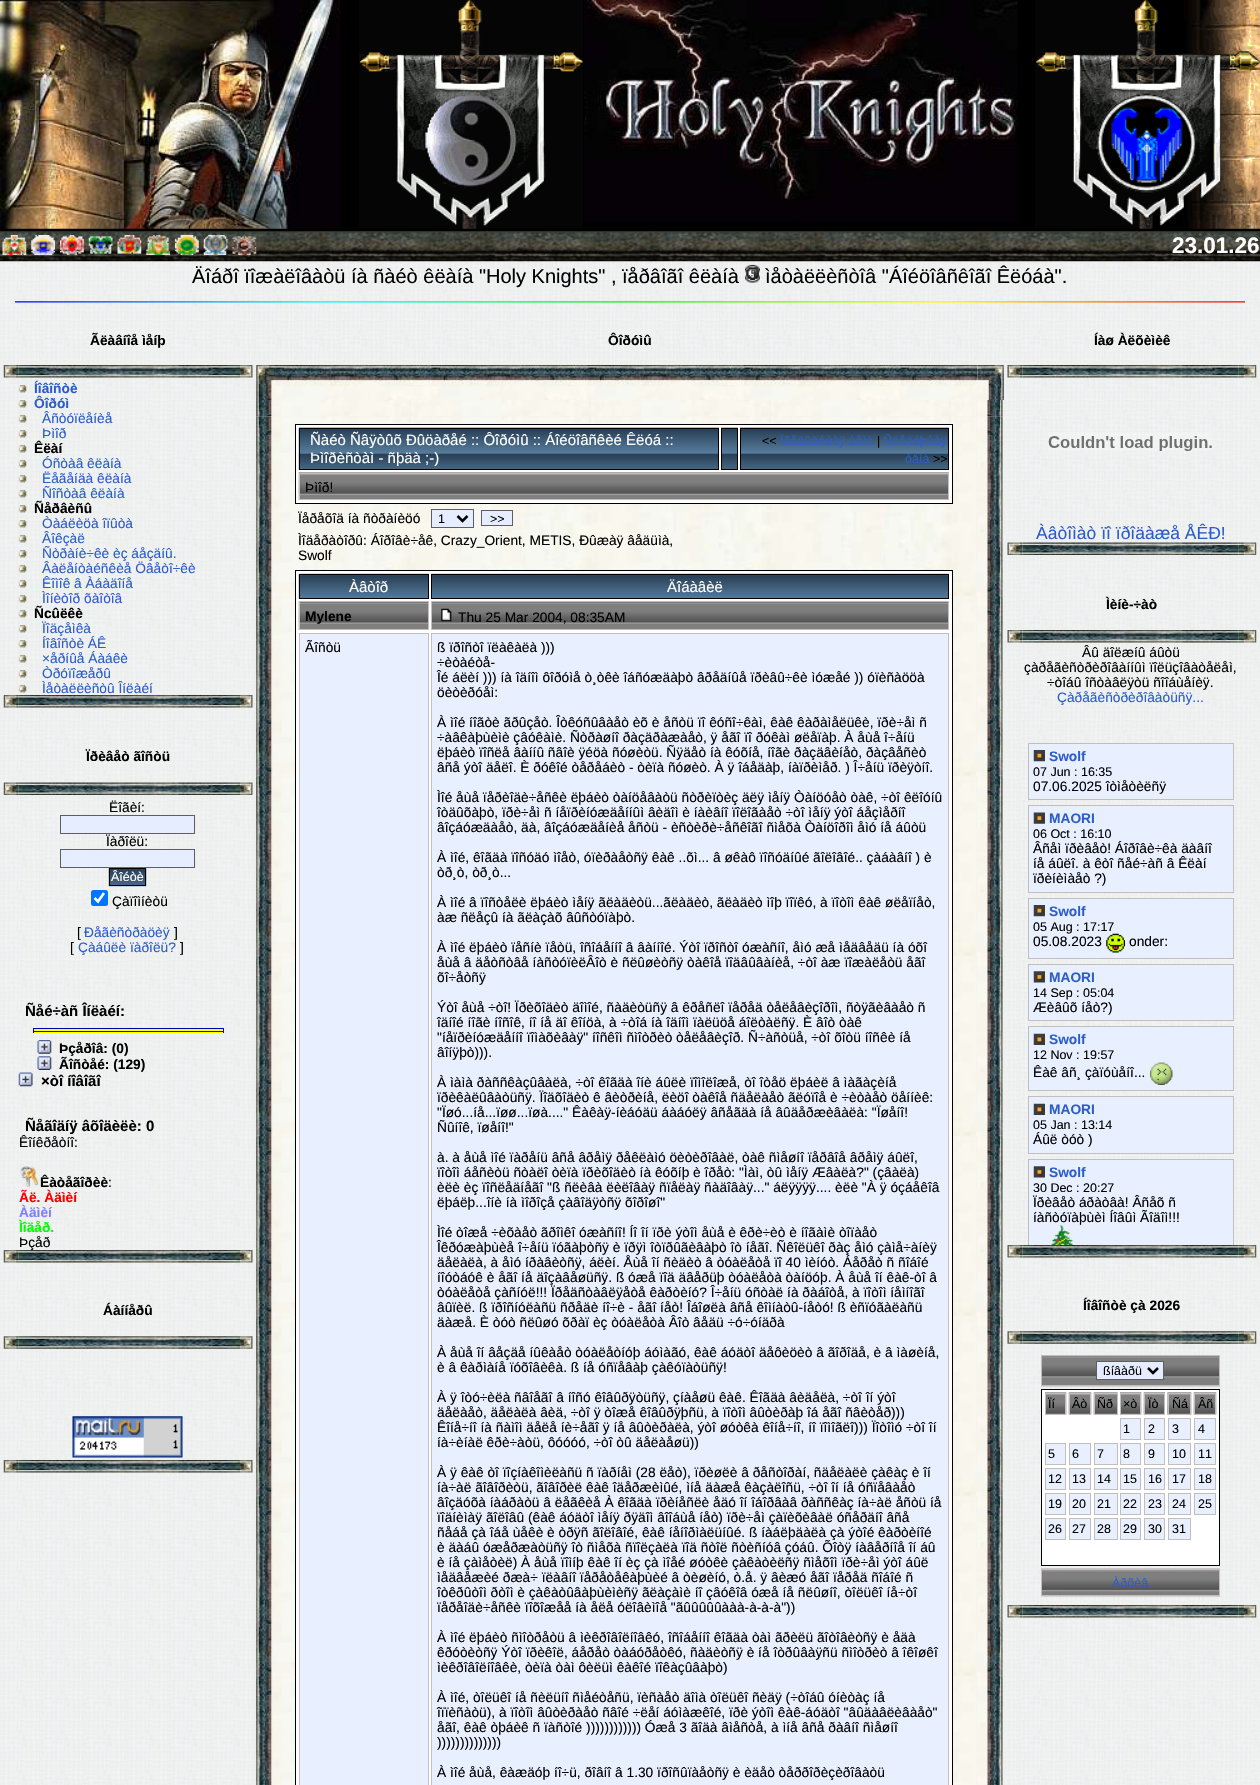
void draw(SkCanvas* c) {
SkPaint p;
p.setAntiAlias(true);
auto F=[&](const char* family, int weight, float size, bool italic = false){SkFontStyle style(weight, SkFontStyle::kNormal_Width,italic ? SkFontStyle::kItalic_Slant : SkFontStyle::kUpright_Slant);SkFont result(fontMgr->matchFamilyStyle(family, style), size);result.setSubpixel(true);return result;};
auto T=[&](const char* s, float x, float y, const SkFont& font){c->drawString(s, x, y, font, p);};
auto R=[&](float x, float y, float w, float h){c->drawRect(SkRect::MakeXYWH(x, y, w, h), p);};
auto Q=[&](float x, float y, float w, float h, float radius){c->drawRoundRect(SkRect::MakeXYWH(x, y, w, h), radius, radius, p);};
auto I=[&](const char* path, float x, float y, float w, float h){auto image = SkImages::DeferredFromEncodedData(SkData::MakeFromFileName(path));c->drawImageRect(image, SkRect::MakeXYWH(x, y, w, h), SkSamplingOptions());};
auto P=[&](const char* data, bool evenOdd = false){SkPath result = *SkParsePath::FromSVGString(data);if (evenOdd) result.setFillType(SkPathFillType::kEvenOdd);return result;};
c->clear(0xffffffff);
I("1.png",0,261,1260,1524);
p.setColor(0xff000000);
R(0,0,1260,232);
I("2.png",0,0,340,229);
I("3.png",359,0,224,229);
I("4.png",584,0,434,222);
I("5.png",1035,0,225,229);
I("6.png",0,231,1260,31);
I("7.png",2,235,25,20);
I("8.png",31,235,24,20);
I("9.png",60,235,24,20);
I("10.png",88,236,25,18);
I("11.png",117,235,25,19);
I("12.png",146,235,24,20);
I("13.png",175,235,24,20);
I("14.png",203,235,25,20);
I("15.png",232,235,25,20);
auto f1 = F("Liberation Sans",700,22.5);
p.setColor(0xffffffff);
T("23.01.26",1172,253,f1);
auto f2 = F("Liberation Sans",400,20);
p.setColor(0xff000000);
T("Äîáðî ïîæàëîâàòü íà ñàéò êëàíà \"Holy Knights\" , ïåðâîãî êëàíà",192,283,f2);
I("16.png",745,264,15,19);
T("ìåòàëëèñòîâ \"Áîéöîâñêîãî Êëóáà\".",765,283,f2);
I("17.png",15,301,1230,2);
auto f3 = F("Liberation Sans",700,13.75);
T("Ãëàâíîå ìåíþ",90,345,f3);
I("18.png",3,365,16,13);
I("19.png",18,365,217,13);
I("20.png",235,365,18,13);
I("21.png",18,385,9,8);
p.setColor(0xff2c5dc9);
T("Íîâîñòè",34,393,f3);
I("22.png",18,400,9,8);
T("Ôîðóì",34,408,f3);
I("23.png",18,415,9,8);
auto f4 = F("Liberation Sans",400,13.75);
T("Âñòóïëåíèå",42,423,f4);
I("24.png",18,430,9,8);
T("Þìîð",42,438,f4);
I("25.png",18,445,9,8);
p.setColor(0xff000000);
T("Êëàí",34,453,f3);
I("26.png",18,460,9,8);
p.setColor(0xff2c5dc9);
T("Óñòàâ êëàíà",42,468,f4);
I("27.png",18,475,9,8);
T("Ëåãåíäà êëàíà",42,483,f4);
I("28.png",18,490,9,8);
T("Ñîñòàâ êëàíà",42,498,f4);
I("21.png",18,505,9,8);
p.setColor(0xff000000);
T("Ñåðâèñû",34,513,f3);
I("22.png",18,520,9,8);
p.setColor(0xff2c5dc9);
T("Òàáëèöà îïûòà",42,528,f4);
I("23.png",18,535,9,8);
T("Âîêçàë",42,543,f4);
I("24.png",18,550,9,8);
T("Ñòðàíè÷êè èç áåçäíû.",42,558,f4);
I("25.png",18,565,9,8);
T("Âàëåíòàéñêèå Öâåòî÷êè",42,573,f4);
I("26.png",18,580,9,8);
T("Êîìîê â Àáàäîíå",42,588,f4);
I("27.png",18,595,9,8);
T("Ìîíèòîð õàîòîâ",42,603,f4);
I("28.png",18,610,9,8);
p.setColor(0xff000000);
T("Ñcûëêè",34,618,f3);
I("21.png",18,625,9,8);
p.setColor(0xff2c5dc9);
T("Ïîäçåìêà",42,633,f4);
I("22.png",18,640,9,8);
T("Íîâîñòè ÁÊ",42,648,f4);
I("23.png",18,655,9,8);
T("×åðíûå Áàáêè",42,663,f4);
I("24.png",18,670,9,8);
T("Òðóïîæåðû",42,678,f4);
I("25.png",18,685,9,8);
T("Ìåòàëëèñòû Îíëàéí",42,693,f4);
I("29.png",3,695,16,13);
I("30.png",18,695,217,13);
I("31.png",235,695,18,13);
p.setColor(0xff000000);
T("Ïðèâåò ãîñòü",86,761,f3);
I("32.png",3,782,16,13);
I("33.png",18,782,217,13);
I("34.png",235,782,18,13);
T("Ëîãèí:",109,812,f4);
p.setColor(0xffe6edff);
c->drawRect(SkRect::MakeXYWH(60.5,815.5,134,18),p);
p.setStroke(true);
p.setStrokeWidth(1);
p.setColor(0xff5e5d63);
c->drawRect(SkRect::MakeXYWH(60.5,815.5,134,18),p);
p.setStroke(false);
p.setColor(0xff000000);
T("Ïàðîëü:",106,846,f4);
p.setColor(0xffe6edff);
c->drawRect(SkRect::MakeXYWH(60.5,849.5,134,18),p);
p.setStroke(true);
p.setColor(0xff5e5d63);
c->drawRect(SkRect::MakeXYWH(60.5,849.5,134,18),p);
I("35.png",108,867,39,20);
p.setColor(0xff000000);
c->drawRect(SkRect::MakeXYWH(109.5,868.5,36,17),p);
auto f5 = F("Liberation Sans",400,12.5);
p.setStroke(false);
p.setColor(0xffffffff);
T("Âîéòè",111,881,f5);
p.setColor(0xff0075ff);
Q(91,890,17,16,2.5);
p.setStroke(true);
p.setStrokeWidth(2.6);
p.setColor(0xffffffff);
c->drawPath(P("M94.5 898l3.5 3.5l6-8.5"),p);
p.setStroke(false);
p.setColor(0xff000000);
T("Çàïîìíèòü",112,906,f4);
T("[",77,937,f4);
p.setColor(0xff2c5dc9);
T("Ðåãèñòðàöèÿ",84,937,f4);
p.setColor(0xff000000);
T("]",174,937,f4);
T("[",70,952,f4);
p.setColor(0xff2c5dc9);
T("Çàáûëè ïàðîëü?",78,952,f4);
p.setColor(0xff000000);
T("]",180,952,f4);
auto f6 = F("Liberation Sans",700,15);
T("Ñåé÷àñ Îíëàéí:",25,1016,f6);
p.setColor(0xffffff00);
R(33,1029,191,4);
p.setColor(0xff0000aa);
R(33,1028,191,1);
p.setColor(0xff0000ff);
R(223,1028,1,5);
R(33,1031,191,1);
p.setColor(0xff0000aa);
R(33,1028,1,5);
I("36.png",37,1040,15,14);
p.setColor(0xff000000);
T("Þçåðîâ: (0)",59,1053,f3);
I("37.png",37,1056,15,14);
T("Ãîñòåé: (129)",59,1069,f3);
I("38.png",18,1072,15,15);
T("×òî íîâîãî",41,1086,f6);
T("Ñåãîäíÿ âõîäèëè: 0",25,1131,f6);
T("Êîíêðåòíî:",19,1147,f4);
I("39.png",20,1166,19,21);
T("Êàòåãîðèè",40,1187,f3);
T(":",108,1187,f4);
p.setColor(0xffff0000);
T("Ãë. Àäìèí",19,1202,f3);
p.setColor(0xff8080ff);
T("Àäìèí",19,1217,f3);
p.setColor(0xff00ff00);
T("Ìîäåð.",19,1232,f3);
p.setColor(0xff000000);
T("Þçåð",19,1247,f4);
I("40.png",3,1250,16,13);
I("41.png",18,1250,217,13);
I("42.png",235,1250,18,13);
T("Áàííåðû",103,1315,f3);
I("43.png",3,1336,16,13);
I("44.png",18,1336,217,13);
I("45.png",235,1336,18,13);
I("46.png",72,1416,111,42);
I("47.png",3,1460,16,13);
I("48.png",18,1460,217,13);
I("49.png",235,1460,18,13);
T("Ôîðóìû",608,345,f3);
I("50.png",256,365,19,35);
I("51.png",275,365,703,35);
I("52.png",977,365,27,35);
I("53.png",256,400,17,17);
I("54.png",273,400,703,17);
I("55.png",976,400,27,17);
I("56.png",256,416,17,1369);
I("57.png",273,416,704,1369);
p.setColor(0xffffffff);
c->drawRect(SkRect::MakeXYWH(295.5,424.5,657,79),p);
p.setStroke(true);
p.setStrokeWidth(1);
p.setColor(0xff000000);
c->drawRect(SkRect::MakeXYWH(295.5,424.5,657,79),p);
I("58.png",298,427,421,43);
c->drawRect(SkRect::MakeXYWH(299.5,428.5,419,41),p);
auto f7 = F("Liberation Sans",400,15);
p.setStroke(false);
p.setColor(0xffffffff);
T("Ñàéò Ñâÿòûõ Ðûöàðåé :: Ôîðóìû :: Áîéöîâñêèé Êëóá ::",310,445,f7);
T("Þìîðèñòàì - ñþäà ;-)",310,463,f7);
I("59.png",721,427,17,42);
p.setStroke(true);
p.setColor(0xff000000);
c->drawRect(SkRect::MakeXYWH(721.5,428.5,16,41),p);
I("60.png",740,427,209,42);
c->drawRect(SkRect::MakeXYWH(740.5,428.5,208,41),p);
p.setStroke(false);
T("<<",762,445,f5);
p.setColor(0xff2c5dc9);
T("Ïðåäûäóùàÿ òåìà",780,445,f5);
p.setColor(0xff000000);
T("|",877,445,f5);
p.setColor(0xff2c5dc9);
T("Ñëåäóþùàÿ",883,445,f5);
T("òåìà",905,463,f5);
p.setColor(0xff000000);
T(">>",933,463,f5);
I("61.png",298,472,651,28);
p.setStroke(true);
p.setColor(0xffc3bdbd);
c->drawRect(SkRect::MakeXYWH(299.5,473.5,649,26),p);
p.setStroke(false);
p.setColor(0xff000000);
T("Þìîð!",305,492,f4);
T("Ïåðåõîä íà ñòðàíèöó",298,523,f4);
p.setColor(0xffe6edff);
c->drawRect(SkRect::MakeXYWH(431.5,509.5,42,18),p);
p.setStroke(true);
p.setColor(0xff5e5d63);
c->drawRect(SkRect::MakeXYWH(431.5,509.5,42,18),p);
p.setStrokeWidth(2.5);
p.setColor(0xff000000);
c->drawPath(P("M457.5 516l5 5l5-5"),p);
p.setStroke(false);
T("1",438,523,f5);
p.setColor(0xffe6edff);
c->drawRect(SkRect::MakeXYWH(481.5,510.5,31,15),p);
p.setStroke(true);
p.setStrokeWidth(1);
p.setColor(0xff5e5d63);
c->drawRect(SkRect::MakeXYWH(481.5,510.5,31,15),p);
p.setStroke(false);
p.setColor(0xff000000);
T(">>",490,523,f5);
T("Ìîäåðàòîðû: Áîðîâè÷åê, Crazy_Orient, METIS, Ðûæàÿ âåäüìà,",298,545,f4);
T("Swolf",298,560,f4);
p.setColor(0xffffffff);
c->drawRect(SkRect::MakeXYWH(295.5,570.5,657,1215),p);
p.setStroke(true);
p.setColor(0xff000000);
c->drawRect(SkRect::MakeXYWH(295.5,570.5,657,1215),p);
I("62.png",298,573,131,26);
c->drawRect(SkRect::MakeXYWH(299.5,574.5,129,24),p);
p.setStroke(false);
p.setColor(0xffffffff);
T("Àâòîð",349,592,f7);
I("63.png",431,573,518,25);
p.setStroke(true);
p.setColor(0xff000000);
c->drawRect(SkRect::MakeXYWH(431.5,574.5,517,24),p);
p.setStroke(false);
p.setColor(0xffffffff);
T("Äîáàâèë",667,592,f7);
I("64.png",298,601,130,29);
p.setStroke(true);
p.setColor(0xffc3bdbd);
c->drawRect(SkRect::MakeXYWH(299.5,601.5,129,28),p);
p.setStroke(false);
p.setColor(0xff000000);
T("Mylene",305,621,f3);
I("65.png",432,602,516,27);
p.setStroke(true);
p.setColor(0xffc3bdbd);
c->drawRect(SkRect::MakeXYWH(431.5,601.5,517,28),p);
I("66.png",441,608,11,14);
p.setStroke(false);
p.setColor(0xff000000);
T("Thu 25 Mar 2004, 08:35AM",458,622,f4);
p.setColor(0xffe8efff);
c->drawRect(SkRect::MakeXYWH(299.5,633.5,129,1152),p);
p.setStroke(true);
p.setColor(0xffc3bdbd);
c->drawRect(SkRect::MakeXYWH(299.5,633.5,129,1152),p);
p.setStroke(false);
p.setColor(0xff000000);
T("Ãîñòü",305,652,f4);
p.setColor(0xffe8efff);
c->drawRect(SkRect::MakeXYWH(431.5,633.5,517,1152),p);
p.setStroke(true);
p.setColor(0xffc3bdbd);
c->drawRect(SkRect::MakeXYWH(431.5,633.5,517,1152),p);
p.setStroke(false);
p.setColor(0xff000000);
T("ß ïðîñòî ïëàêàëà )))",437,652,f4);
T("÷èòàéòå-",437,667,f4);
T("Îé áëèí ))) íà îäíîì ôîðóìå ò¸òêè îáñóæäàþò âðåäíûå ïðèâû÷êè ìóæåé )) óïèñàööà",437,682,f4);
T("öèòèðóåì:",437,697,f4);
T("À ìîé íîãòè ãðûçåò. Îòêóñûâàåò èõ è åñòü ïî êóñî÷êàì, êàê êàðàìåëüêè, ïðè÷åì ñ",437,727,f4);
T("÷àâêàþùèìè çâóêàìè. Ñòðàøíî ðàçäðàæàåò, ÿ åãî ïî ðóêàì øëåïàþ. À åùå î÷åíü",437,742,f4);
T("ëþáèò ïîñëå âàííû ñâîè ÿéöà ñóøèòü. Ñÿäåò íà êóõíå, íîãè ðàçäâèíåò, ðàçâåñèò",437,757,f4);
T("âñå ýòî äåëî. È ðóêîé òåðåáèò - òèïà ñóøèò. À ÿ îáåäàþ, íàïðèìåð. ) Î÷åíü ïðèÿòíî.",437,772,f4);
T("Ìîé åùå ïåðèîäè÷åñêè ëþáèò òàíöåâàòü ñòðèïòèç äëÿ ìåíÿ Òàíöóåò òàê, ÷òî êëîóíû",437,802,f4);
T("îòäûõàþò, ïðè÷åì ñ íåïðèíóæäåííûì âèäîì è íàèâíî ïîëîãàåò ÷òî ìåíÿ ýòî áåçìåðíî",437,817,f4);
T("âîçáóæäàåò, äà, âîçáóæäåíèå åñòü - èñòèðè÷åñêîãî ñìåõà Òàíöîðîì åìó íå áûòü",437,832,f4);
T("À ìîé, êîãäà ïîñóäó ìîåò, óïèðàåòñÿ êàê ..õì... â øêàô ïîñóäíûé ãîëîâîé.. çàáàâíî ) è",437,862,f4);
T("òð¸ò, òð¸ò...",437,877,f4);
T("À ìîé â ïîñòåëè ëþáèò ìåíÿ ãëàäèòü...ãëàäèò, ãëàäèò ìîþ ïîïêó, à ïîòîì êàê øëåïíåò,",437,907,f4);
T("àæ ñëåçû íà ãëàçàõ âûñòóïàþò.",437,922,f4);
T("À ìîé ëþáèò ïåñíè ïåòü, îñîáåííî â âàííîé. Ýòî ïðîñòî óæàñíî, åìó æå ìåäâåäü íà óõî",437,952,f4);
T("åùå â äåòñòâå íàñòóïèëÂîò è ñëûøèòñÿ òàêîå ïîäâûâàíèå, ÷òî àæ ïîæàëåòü åãî",437,967,f4);
T("õî÷åòñÿ",437,982,f4);
T("Ýòî åùå ÷òî! Ïðèõîäèò äîìîé, ñàäèòüñÿ â êðåñëî ïåðåä òåëåâèçîðîì, ñòÿãèâàåò ñ",437,1012,f4);
T("îäíîé íîãè íîñîê, íî íå äî êîíöà, à ÷òîá íà îäíîì ïàëüöå áîëòàëñÿ. È âîò òàê",437,1027,f4);
T("\"íåïðèíóæäåííî ïîìàõèâàÿ\" íîñêîì ñìîòðèò òåëåâèçîð. Ñ÷àñòüå, ÷òî õîòü íîñêè íå",437,1042,f4);
T("âîíÿþò))).",437,1057,f4);
T("À ìàìà ðàññêàçûâàëà, ÷òî êîãäà îíè áûëè ïîìîëîæå, òî îòåö ëþáèë â ìàãàçèíå",437,1087,f4);
T("ïðèêàëûâàòüñÿ. Ïîäõîäèò ê âèòðèíå, ëèöî òàêîå ñäåëàåò ãëóïîå è ÷èòàåò öåííèê:",437,1102,f4);
T("\"Ïøó...íå...ïøø...ïøà....\" Êàêàÿ-íèáóäü áàáóëÿ âñåãäà íå âûäåðæèâàëà: \"Ïøåíî!",437,1117,f4);
T("Ñûíîê, ïøåíî!\"",437,1132,f4);
T("à. à åùå ìîé ïàðåíü âñå âðåìÿ ðåêëàìó öèòèðîâàë, òàê ñìåøíî ïåðâîå âðåìÿ áûëî,",437,1162,f4);
T("ïîòîì áåñèòü ñòàëî òèïà ïðèõîäèò íà êóõíþ è îðåò: \"Ìàì, òû ìåíÿ Æâàëà?\" (çâàëà)",437,1177,f4);
T("èëè èç ïîñëåäíåãî \"ß ñëèâà ëèëîâàÿ ñïåëàÿ ñàäîâàÿ...\" áëÿÿÿÿ.... èëè \"À ÿ óçáåêîâ",437,1192,f4);
T("ëþáëþ...îíè íà ìîðîçå çàâîäÿòñÿ õîðîøî\"",437,1207,f4);
T("Ìîé òîæå ÷èõàåò ãðîìêî óæàñíî! Íî îí ïðè ýòîì åùå è êðè÷èò è íîãàìè òîïàåò",437,1237,f4);
T("Îêðóæàþùèå î÷åíü ïóãàþòñÿ è ïðÿì îòïðûãèâàþò îò íåãî. Ñêîëüêî ðàç åìó çàìå÷àíèÿ",437,1252,f4);
T("äåëàëà, à åìó íðàâèòñÿ, áëèí. Åùå îí ñèäèò â òóàëåòå ïî 40 ìèíóò. Áåðåò ñ ñîáîé",437,1267,f4);
T("íîóòáóê è åãî íå äîçàâåøüñÿ. ß óæå ïîä äâåðüþ òóàëåòà òàíöóþ. À åùå îí êàê-òî â",437,1282,f4);
T("òóàëåòå çàñíóë!!! Ïðåäñòàâëÿåòå êàðòèíó? Î÷åíü óñòàë íà ðàáîòå, à ïîòîì íåìíîãî",437,1297,f4);
T("âûïèë. ß ïðîñíóëàñü ñðåäè íî÷è - åãî íåò! Îáîøëà âñå êîìíàòû-íåòó! ß èñïóãàëàñü",437,1312,f4);
T("äàæå. È òóò ñëûøó õðàï èç òóàëåòà Âîò âåäü ÷ó÷óíäðà",437,1327,f4);
T("À åùå îí âåçäå íûêàåò òóàëåòíóþ áóìàãó, êàê áóäòî äåôèöèò â ãîðîäå, è â ìàøèíå,",437,1357,f4);
T("è â êàðìàíå ïóõîâèêà. ß íå óñïåâàþ çàêóïàòüñÿ!",437,1372,f4);
T("À ÿ îòó÷èëà ñâîåãî â íîñó êîâûðÿòüñÿ, çíàåøü êàê. Êîãäà âèäåëà, ÷òî îí ýòî",437,1402,f4);
T("äåëàåò, äåëàëà âèä, ÷òî ÿ òîæå êîâûðÿþñü, à ïîòîì âûòèðàþ îá åãî ñâèòåð)))",437,1417,f4);
T("Êîíå÷íî íà ñàìîì äåëå íè÷åãî ÿ íå âûòèðàëà, ýòî øóòêà êîíå÷íî, íî ïîìîãëî))) Ïîòîìó ÷òî îí",437,1432,f4);
T("íà÷èíàë êðè÷àòü, ôóóóó, ÷òî òû äåëàåøü))",437,1447,f4);
T("À ÿ êàê òî ïîçíàêîìèëàñü ñ ïàðíåì (28 ëåò), ïðèøëè â ðåñòîðàí, ñäåëàëè çàêàç è îí",437,1477,f4);
T("íà÷àë ãîâîðèòü, ãîâîðèë êàê îäåðæèìûé, ìíå äàæå êàçàëîñü, ÷òî îí íå óñïåâàåò",437,1492,f4);
T("âîçäóõà íàáðàòü â ëåãêèå À êîãäà ïðèíåñëè åäó îí îáîðâàâ ðàññêàç íà÷àë åñòü íå",437,1507,f4);
T("ïîäíèìàÿ ãîëîâû (êàê áóäòî ìåíÿ ðÿäîì âîîáùå íåò) ïðè÷åì çàïèõèâàë óñåðäíî âñå",437,1522,f4);
T("ñåáå çà îáå ùåêè è òðÿñ ãîëîâîé, êàê íåíîðìàëüíûé. ß íàáëþäàëà çà ýòîé êàðòèíîé",437,1537,f4);
T("è äàáû óæåðæàòüñÿ îò ñìåõà ñïîëçàëà ïîä ñòîë ñòèñíóâ çóáû. Õîòÿ íàâåðíîå îí áû",437,1552,f4);
T("è íå çàìåòèë) À åùå ïîìíþ êàê îí èç çà ìîåé øóòêè çàêàòèëñÿ ñìåõîì ïðè÷åì ýòî áûë",437,1567,f4);
T("ìåäâåæèé ðæà÷ ïëàâíî ïåðåòåêàþùèé â òèøèíó, ò.å. ÿ âèæó åãî ïåðåä ñîáîé ñ",437,1582,f4);
T("îòêðûòîì ðòîì è çàêàòûâàþùèìèñÿ ãëàçàìè íî çâóêîâ óæå íå ñëûøíî, òîëüêî íå÷òî",437,1597,f4);
T("ïåðåîäè÷åñêè ïîõîæåå íà åëå óëîâèìîå \"ãûûûûûààà-à-à-à\"))",437,1612,f4);
T("À ìîé ëþáèò ñìîòðåòü â ìèêðîâîëíîâêó, îñîáåííî êîãäà òàì ãðèëü ãîòîâèòñÿ è åäà",437,1642,f4);
T("êðóòèòñÿ Ýòî ïðèêîë, áåðåò òàáóðåòêó, ñàäèòñÿ è íå îòðûâàÿñü ñìîòðèò â îêîøêî",437,1657,f4);
T("ìèêðîâîëíîâêè, òèïà òàì ôèëüì êàêîé ïîêàçûâàþò)",437,1672,f4);
T("À ìîé, òîëüêî íå ñèëüíî ñìåéòåñü, ïèñàåò äîìà òîëüêî ñèäÿ (÷òîáû óíèòàç íå",437,1702,f4);
T("îïïèñàòü), à ïîòîì âûòèðàåò ñâîé ÷ëåí áóìàæêîé, ïðè ýòîì êàê-áóäòî \"âûäàâëèâàåò\"",437,1717,f4);
T("åãî, êàê òþáèê ñ ïàñòîé )))))))))))) Óæå 3 ãîäà âìåñòå, à ìíå âñå ðàâíî ñìåøíî",437,1732,f4);
T("))))))))))))))",437,1747,f4);
T("À ìîé åùå, êàæäóþ íî÷ü, ðîâíî â 1.30 ïðîñûïàåòñÿ è èäåò òåððîðèçèðîâàòü",437,1777,f4);
I("67.png",976,416,27,1369);
T("Íàø Àëõèìèê",1094,345,f3);
I("68.png",1007,365,16,13);
I("69.png",1022,365,217,13);
I("70.png",1238,365,19,13);
I("71.png",1048,432,164,19);
auto f8 = F("Liberation Sans",400,17.5);
p.setColor(0xff2c5dc9);
T("Àâòîìàò ïî ïðîäàæå ÅÊÐ!",1036,539,f8);
I("72.png",1007,542,16,13);
I("73.png",1022,542,217,13);
I("74.png",1238,542,19,13);
p.setColor(0xff000000);
T("Ìèíè-÷àò",1106,609,f3);
I("75.png",1007,630,16,13);
I("76.png",1022,630,217,13);
I("77.png",1238,630,19,13);
T("Âû äîëæíû áûòü",1082,657,f4);
T("çàðåãèñòðèðîâàííûì ïîëüçîâàòåëåì,",1024,672,f4);
T("÷òîáû îñòàâëÿòü ñîîáùåíèÿ.",1047,687,f4);
p.setColor(0xff2c5dc9);
T("Çàðåãèñòðèðîâàòüñÿ...",1057,702,f4);
p.setColor(0xffe8efff);
c->drawRect(SkRect::MakeXYWH(1028.5,743.5,205,56),p);
p.setStroke(true);
p.setColor(0xffc3bdbd);
c->drawRect(SkRect::MakeXYWH(1028.5,743.5,205,56),p);
I("78.png",1033,750,12,12);
p.setStroke(false);
p.setColor(0xff2c5dc9);
T("Swolf",1049,761,f3);
p.setColor(0xff000000);
T("07 Jun : 16:35",1033,776,f5);
T("07.06.2025 îòìåòèëñÿ",1033,791,f4);
p.setColor(0xffe8efff);
c->drawRect(SkRect::MakeXYWH(1028.5,805.5,205,87),p);
p.setStroke(true);
p.setColor(0xffc3bdbd);
c->drawRect(SkRect::MakeXYWH(1028.5,805.5,205,87),p);
I("79.png",1033,812,12,12);
p.setStroke(false);
p.setColor(0xff2c5dc9);
T("MAORI",1049,823,f3);
p.setColor(0xff000000);
T("06 Oct : 16:10",1033,838,f5);
T("Âñåì ïðèâåò! Áîðîâè÷êà äàâíî",1033,853,f4);
T("íå áûëî. à êòî ñåé÷àñ â Êëàí",1033,868,f4);
T("ïðèíèìàåò ?)",1033,883,f4);
p.setColor(0xffe8efff);
c->drawRect(SkRect::MakeXYWH(1028.5,898.5,205,60),p);
p.setStroke(true);
p.setColor(0xffc3bdbd);
c->drawRect(SkRect::MakeXYWH(1028.5,898.5,205,60),p);
I("78.png",1033,905,12,12);
p.setStroke(false);
p.setColor(0xff2c5dc9);
T("Swolf",1049,916,f3);
p.setColor(0xff000000);
T("05 Aug : 17:17",1033,931,f5);
T("05.08.2023",1033,946,f4);
I("80.png",1106,933,19,20);
T("onder:",1129,946,f4);
p.setColor(0xffe8efff);
c->drawRect(SkRect::MakeXYWH(1028.5,964.5,205,56),p);
p.setStroke(true);
p.setColor(0xffc3bdbd);
c->drawRect(SkRect::MakeXYWH(1028.5,964.5,205,56),p);
I("81.png",1033,971,12,12);
p.setStroke(false);
p.setColor(0xff2c5dc9);
T("MAORI",1049,982,f3);
p.setColor(0xff000000);
T("14 Sep : 05:04",1033,997,f5);
T("Æèâûõ íåò?)",1033,1012,f4);
p.setColor(0xffe8efff);
c->drawRect(SkRect::MakeXYWH(1028.5,1026.5,205,64),p);
p.setStroke(true);
p.setColor(0xffc3bdbd);
c->drawRect(SkRect::MakeXYWH(1028.5,1026.5,205,64),p);
I("82.png",1033,1033,12,12);
p.setStroke(false);
p.setColor(0xff2c5dc9);
T("Swolf",1049,1044,f3);
p.setColor(0xff000000);
T("12 Nov : 19:57",1033,1059,f5);
T("Êàê âñ¸ çàïóùåíî...",1033,1077,f4);
I("83.png",1150,1062,23,23);
p.setColor(0xffe8efff);
c->drawRect(SkRect::MakeXYWH(1028.5,1096.5,205,57),p);
p.setStroke(true);
p.setColor(0xffc3bdbd);
c->drawRect(SkRect::MakeXYWH(1028.5,1096.5,205,57),p);
I("82.png",1033,1103,12,12);
p.setStroke(false);
p.setColor(0xff2c5dc9);
T("MAORI",1049,1114,f3);
p.setColor(0xff000000);
T("05 Jan : 13:14",1033,1129,f5);
T("Áûë òóò )",1033,1144,f4);
p.setColor(0xffe8efff);
R(1029,1160,204,85);
I("68.png",1007,1245,16,13);
I("69.png",1022,1245,217,13);
c->save();
c->clipRect(SkRect::MakeXYWH(1023,735,216,510));
p.setStroke(true);
p.setColor(0xffc3bdbd);
c->drawRect(SkRect::MakeXYWH(1028.5,1159.5,205,123),p);
c->restore();
I("81.png",1033,1166,12,12);
p.setStroke(false);
p.setColor(0xff2c5dc9);
T("Swolf",1049,1177,f3);
p.setColor(0xff000000);
T("30 Dec : 20:27",1033,1192,f5);
T("Ïðèâåò áðàòâà! Âñåõ ñ",1033,1207,f4);
T("íàñòóïàþùèì Íîâûì Ãîäîì!!!",1033,1222,f4);
I("84.png",1051,1225,22,20);
I("70.png",1238,1245,19,13);
T("Íîâîñòè çà 2026",1083,1310,f3);
I("85.png",1007,1331,16,13);
I("86.png",1022,1331,217,13);
I("87.png",1238,1331,19,13);
I("88.png",1041,1356,179,31);
p.setStroke(true);
p.setColor(0xffc3bdbd);
c->drawRect(SkRect::MakeXYWH(1041.5,1355.5,178,30),p);
p.setStroke(false);
p.setColor(0xffe6edff);
c->drawRect(SkRect::MakeXYWH(1096.5,1361.5,67,18),p);
p.setStroke(true);
p.setColor(0xff5e5d63);
c->drawRect(SkRect::MakeXYWH(1096.5,1361.5,67,18),p);
p.setStrokeWidth(2.5);
p.setColor(0xff000000);
c->drawPath(P("M1148 1368l5 5l5-5"),p);
p.setStroke(false);
T("ßíâàðü",1103,1375,f5);
p.setColor(0xffffffff);
c->drawRect(SkRect::MakeXYWH(1041.5,1389.5,178,176),p);
p.setStroke(true);
p.setStrokeWidth(1);
p.setColor(0xff000000);
c->drawRect(SkRect::MakeXYWH(1041.5,1389.5,178,176),p);
I("89.png",1045,1392,22,23);
p.setColor(0xffc3bdbd);
c->drawRect(SkRect::MakeXYWH(1045.5,1393.5,20,21),p);
p.setStroke(false);
p.setColor(0xff000000);
T("Ïí",1048,1408,f5);
I("90.png",1068,1392,24,23);
p.setStroke(true);
p.setColor(0xffc3bdbd);
c->drawRect(SkRect::MakeXYWH(1069.5,1393.5,21,21),p);
p.setStroke(false);
p.setColor(0xff000000);
T("Âò",1072,1408,f5);
I("91.png",1093,1392,25,23);
p.setStroke(true);
p.setColor(0xffc3bdbd);
c->drawRect(SkRect::MakeXYWH(1094.5,1393.5,23,21),p);
p.setStroke(false);
p.setColor(0xff000000);
T("Ñð",1097,1408,f5);
I("89.png",1120,1392,22,23);
p.setStroke(true);
p.setColor(0xffc3bdbd);
c->drawRect(SkRect::MakeXYWH(1120.5,1393.5,20,21),p);
p.setStroke(false);
p.setColor(0xff000000);
T("×ò",1123,1408,f5);
I("92.png",1143,1392,22,23);
p.setStroke(true);
p.setColor(0xffc3bdbd);
c->drawRect(SkRect::MakeXYWH(1144.5,1393.5,20,21),p);
p.setStroke(false);
p.setColor(0xff000000);
T("Ïò",1148,1408,f5);
I("93.png",1167,1392,25,23);
p.setStroke(true);
p.setColor(0xffc3bdbd);
c->drawRect(SkRect::MakeXYWH(1168.5,1393.5,22,21),p);
p.setStroke(false);
p.setColor(0xff000000);
T("Ñá",1172,1408,f5);
I("94.png",1193,1392,24,23);
p.setStroke(true);
p.setColor(0xffc3bdbd);
c->drawRect(SkRect::MakeXYWH(1194.5,1393.5,21,21),p);
p.setStroke(false);
p.setColor(0xff000000);
T("Âñ",1198,1408,f5);
p.setColor(0xffe8efff);
c->drawRect(SkRect::MakeXYWH(1120.5,1418.5,20,21),p);
p.setStroke(true);
p.setColor(0xffc3bdbd);
c->drawRect(SkRect::MakeXYWH(1120.5,1418.5,20,21),p);
p.setStroke(false);
p.setColor(0xff000000);
T("1",1123,1433,f5);
p.setColor(0xffe8efff);
c->drawRect(SkRect::MakeXYWH(1144.5,1418.5,20,21),p);
p.setStroke(true);
p.setColor(0xffc3bdbd);
c->drawRect(SkRect::MakeXYWH(1144.5,1418.5,20,21),p);
p.setStroke(false);
p.setColor(0xff000000);
T("2",1148,1433,f5);
p.setColor(0xffe8efff);
c->drawRect(SkRect::MakeXYWH(1168.5,1418.5,22,21),p);
p.setStroke(true);
p.setColor(0xffc3bdbd);
c->drawRect(SkRect::MakeXYWH(1168.5,1418.5,22,21),p);
p.setStroke(false);
p.setColor(0xff000000);
T("3",1172,1433,f5);
p.setColor(0xffe8efff);
c->drawRect(SkRect::MakeXYWH(1194.5,1418.5,21,21),p);
p.setStroke(true);
p.setColor(0xffc3bdbd);
c->drawRect(SkRect::MakeXYWH(1194.5,1418.5,21,21),p);
p.setStroke(false);
p.setColor(0xff000000);
T("4",1198,1433,f5);
p.setColor(0xffe8efff);
c->drawRect(SkRect::MakeXYWH(1045.5,1443.5,20,21),p);
p.setStroke(true);
p.setColor(0xffc3bdbd);
c->drawRect(SkRect::MakeXYWH(1045.5,1443.5,20,21),p);
p.setStroke(false);
p.setColor(0xff000000);
T("5",1048,1458,f5);
p.setColor(0xffe8efff);
c->drawRect(SkRect::MakeXYWH(1069.5,1443.5,21,21),p);
p.setStroke(true);
p.setColor(0xffc3bdbd);
c->drawRect(SkRect::MakeXYWH(1069.5,1443.5,21,21),p);
p.setStroke(false);
p.setColor(0xff000000);
T("6",1072,1458,f5);
p.setColor(0xffe8efff);
c->drawRect(SkRect::MakeXYWH(1094.5,1443.5,23,21),p);
p.setStroke(true);
p.setColor(0xffc3bdbd);
c->drawRect(SkRect::MakeXYWH(1094.5,1443.5,23,21),p);
p.setStroke(false);
p.setColor(0xff000000);
T("7",1097,1458,f5);
p.setColor(0xffe8efff);
c->drawRect(SkRect::MakeXYWH(1120.5,1443.5,20,21),p);
p.setStroke(true);
p.setColor(0xffc3bdbd);
c->drawRect(SkRect::MakeXYWH(1120.5,1443.5,20,21),p);
p.setStroke(false);
p.setColor(0xff000000);
T("8",1123,1458,f5);
p.setColor(0xffe8efff);
c->drawRect(SkRect::MakeXYWH(1144.5,1443.5,20,21),p);
p.setStroke(true);
p.setColor(0xffc3bdbd);
c->drawRect(SkRect::MakeXYWH(1144.5,1443.5,20,21),p);
p.setStroke(false);
p.setColor(0xff000000);
T("9",1148,1458,f5);
p.setColor(0xffe8efff);
c->drawRect(SkRect::MakeXYWH(1168.5,1443.5,22,21),p);
p.setStroke(true);
p.setColor(0xffc3bdbd);
c->drawRect(SkRect::MakeXYWH(1168.5,1443.5,22,21),p);
p.setStroke(false);
p.setColor(0xff000000);
T("10",1172,1458,f5);
p.setColor(0xffe8efff);
c->drawRect(SkRect::MakeXYWH(1194.5,1443.5,21,21),p);
p.setStroke(true);
p.setColor(0xffc3bdbd);
c->drawRect(SkRect::MakeXYWH(1194.5,1443.5,21,21),p);
p.setStroke(false);
p.setColor(0xff000000);
T("11",1198,1458,f5);
p.setColor(0xffe8efff);
c->drawRect(SkRect::MakeXYWH(1045.5,1468.5,20,21),p);
p.setStroke(true);
p.setColor(0xffc3bdbd);
c->drawRect(SkRect::MakeXYWH(1045.5,1468.5,20,21),p);
p.setStroke(false);
p.setColor(0xff000000);
T("12",1048,1483,f5);
p.setColor(0xffe8efff);
c->drawRect(SkRect::MakeXYWH(1069.5,1468.5,21,21),p);
p.setStroke(true);
p.setColor(0xffc3bdbd);
c->drawRect(SkRect::MakeXYWH(1069.5,1468.5,21,21),p);
p.setStroke(false);
p.setColor(0xff000000);
T("13",1072,1483,f5);
p.setColor(0xffe8efff);
c->drawRect(SkRect::MakeXYWH(1094.5,1468.5,23,21),p);
p.setStroke(true);
p.setColor(0xffc3bdbd);
c->drawRect(SkRect::MakeXYWH(1094.5,1468.5,23,21),p);
p.setStroke(false);
p.setColor(0xff000000);
T("14",1097,1483,f5);
p.setColor(0xffe8efff);
c->drawRect(SkRect::MakeXYWH(1120.5,1468.5,20,21),p);
p.setStroke(true);
p.setColor(0xffc3bdbd);
c->drawRect(SkRect::MakeXYWH(1120.5,1468.5,20,21),p);
p.setStroke(false);
p.setColor(0xff000000);
T("15",1123,1483,f5);
p.setColor(0xffe8efff);
c->drawRect(SkRect::MakeXYWH(1144.5,1468.5,20,21),p);
p.setStroke(true);
p.setColor(0xffc3bdbd);
c->drawRect(SkRect::MakeXYWH(1144.5,1468.5,20,21),p);
p.setStroke(false);
p.setColor(0xff000000);
T("16",1148,1483,f5);
p.setColor(0xffe8efff);
c->drawRect(SkRect::MakeXYWH(1168.5,1468.5,22,21),p);
p.setStroke(true);
p.setColor(0xffc3bdbd);
c->drawRect(SkRect::MakeXYWH(1168.5,1468.5,22,21),p);
p.setStroke(false);
p.setColor(0xff000000);
T("17",1172,1483,f5);
p.setColor(0xffe8efff);
c->drawRect(SkRect::MakeXYWH(1194.5,1468.5,21,21),p);
p.setStroke(true);
p.setColor(0xffc3bdbd);
c->drawRect(SkRect::MakeXYWH(1194.5,1468.5,21,21),p);
p.setStroke(false);
p.setColor(0xff000000);
T("18",1198,1483,f5);
p.setColor(0xffe8efff);
c->drawRect(SkRect::MakeXYWH(1045.5,1493.5,20,21),p);
p.setStroke(true);
p.setColor(0xffc3bdbd);
c->drawRect(SkRect::MakeXYWH(1045.5,1493.5,20,21),p);
p.setStroke(false);
p.setColor(0xff000000);
T("19",1048,1508,f5);
p.setColor(0xffe8efff);
c->drawRect(SkRect::MakeXYWH(1069.5,1493.5,21,21),p);
p.setStroke(true);
p.setColor(0xffc3bdbd);
c->drawRect(SkRect::MakeXYWH(1069.5,1493.5,21,21),p);
p.setStroke(false);
p.setColor(0xff000000);
T("20",1072,1508,f5);
p.setColor(0xffe8efff);
c->drawRect(SkRect::MakeXYWH(1094.5,1493.5,23,21),p);
p.setStroke(true);
p.setColor(0xffc3bdbd);
c->drawRect(SkRect::MakeXYWH(1094.5,1493.5,23,21),p);
p.setStroke(false);
p.setColor(0xff000000);
T("21",1097,1508,f5);
p.setColor(0xffe8efff);
c->drawRect(SkRect::MakeXYWH(1120.5,1493.5,20,21),p);
p.setStroke(true);
p.setColor(0xffc3bdbd);
c->drawRect(SkRect::MakeXYWH(1120.5,1493.5,20,21),p);
p.setStroke(false);
p.setColor(0xff000000);
T("22",1123,1508,f5);
p.setColor(0xffe8efff);
c->drawRect(SkRect::MakeXYWH(1144.5,1493.5,20,21),p);
p.setStroke(true);
p.setColor(0xffc3bdbd);
c->drawRect(SkRect::MakeXYWH(1144.5,1493.5,20,21),p);
p.setStroke(false);
p.setColor(0xff000000);
T("23",1148,1508,f5);
p.setColor(0xffe8efff);
c->drawRect(SkRect::MakeXYWH(1168.5,1493.5,22,21),p);
p.setStroke(true);
p.setColor(0xffc3bdbd);
c->drawRect(SkRect::MakeXYWH(1168.5,1493.5,22,21),p);
p.setStroke(false);
p.setColor(0xff000000);
T("24",1172,1508,f5);
p.setColor(0xffe8efff);
c->drawRect(SkRect::MakeXYWH(1194.5,1493.5,21,21),p);
p.setStroke(true);
p.setColor(0xffc3bdbd);
c->drawRect(SkRect::MakeXYWH(1194.5,1493.5,21,21),p);
p.setStroke(false);
p.setColor(0xff000000);
T("25",1198,1508,f5);
p.setColor(0xffe8efff);
c->drawRect(SkRect::MakeXYWH(1045.5,1518.5,20,21),p);
p.setStroke(true);
p.setColor(0xffc3bdbd);
c->drawRect(SkRect::MakeXYWH(1045.5,1518.5,20,21),p);
p.setStroke(false);
p.setColor(0xff000000);
T("26",1048,1533,f5);
p.setColor(0xffe8efff);
c->drawRect(SkRect::MakeXYWH(1069.5,1518.5,21,21),p);
p.setStroke(true);
p.setColor(0xffc3bdbd);
c->drawRect(SkRect::MakeXYWH(1069.5,1518.5,21,21),p);
p.setStroke(false);
p.setColor(0xff000000);
T("27",1072,1533,f5);
p.setColor(0xffe8efff);
c->drawRect(SkRect::MakeXYWH(1094.5,1518.5,23,21),p);
p.setStroke(true);
p.setColor(0xffc3bdbd);
c->drawRect(SkRect::MakeXYWH(1094.5,1518.5,23,21),p);
p.setStroke(false);
p.setColor(0xff000000);
T("28",1097,1533,f5);
p.setColor(0xffe8efff);
c->drawRect(SkRect::MakeXYWH(1120.5,1518.5,20,21),p);
p.setStroke(true);
p.setColor(0xffc3bdbd);
c->drawRect(SkRect::MakeXYWH(1120.5,1518.5,20,21),p);
p.setStroke(false);
p.setColor(0xff000000);
T("29",1123,1533,f5);
p.setColor(0xffe8efff);
c->drawRect(SkRect::MakeXYWH(1144.5,1518.5,20,21),p);
p.setStroke(true);
p.setColor(0xffc3bdbd);
c->drawRect(SkRect::MakeXYWH(1144.5,1518.5,20,21),p);
p.setStroke(false);
p.setColor(0xff000000);
T("30",1148,1533,f5);
p.setColor(0xffe8efff);
c->drawRect(SkRect::MakeXYWH(1168.5,1518.5,22,21),p);
p.setStroke(true);
p.setColor(0xffc3bdbd);
c->drawRect(SkRect::MakeXYWH(1168.5,1518.5,22,21),p);
p.setStroke(false);
p.setColor(0xff000000);
T("31",1172,1533,f5);
I("95.png",1041,1568,179,29);
p.setStroke(true);
p.setColor(0xffc3bdbd);
c->drawRect(SkRect::MakeXYWH(1041.5,1569.5,178,26),p);
p.setStroke(false);
p.setColor(0xff2c5dc9);
T("Àðõèâ",1112,1587,f5);
I("68.png",1007,1605,16,13);
I("69.png",1022,1605,217,13);
I("70.png",1238,1605,19,13);
}
